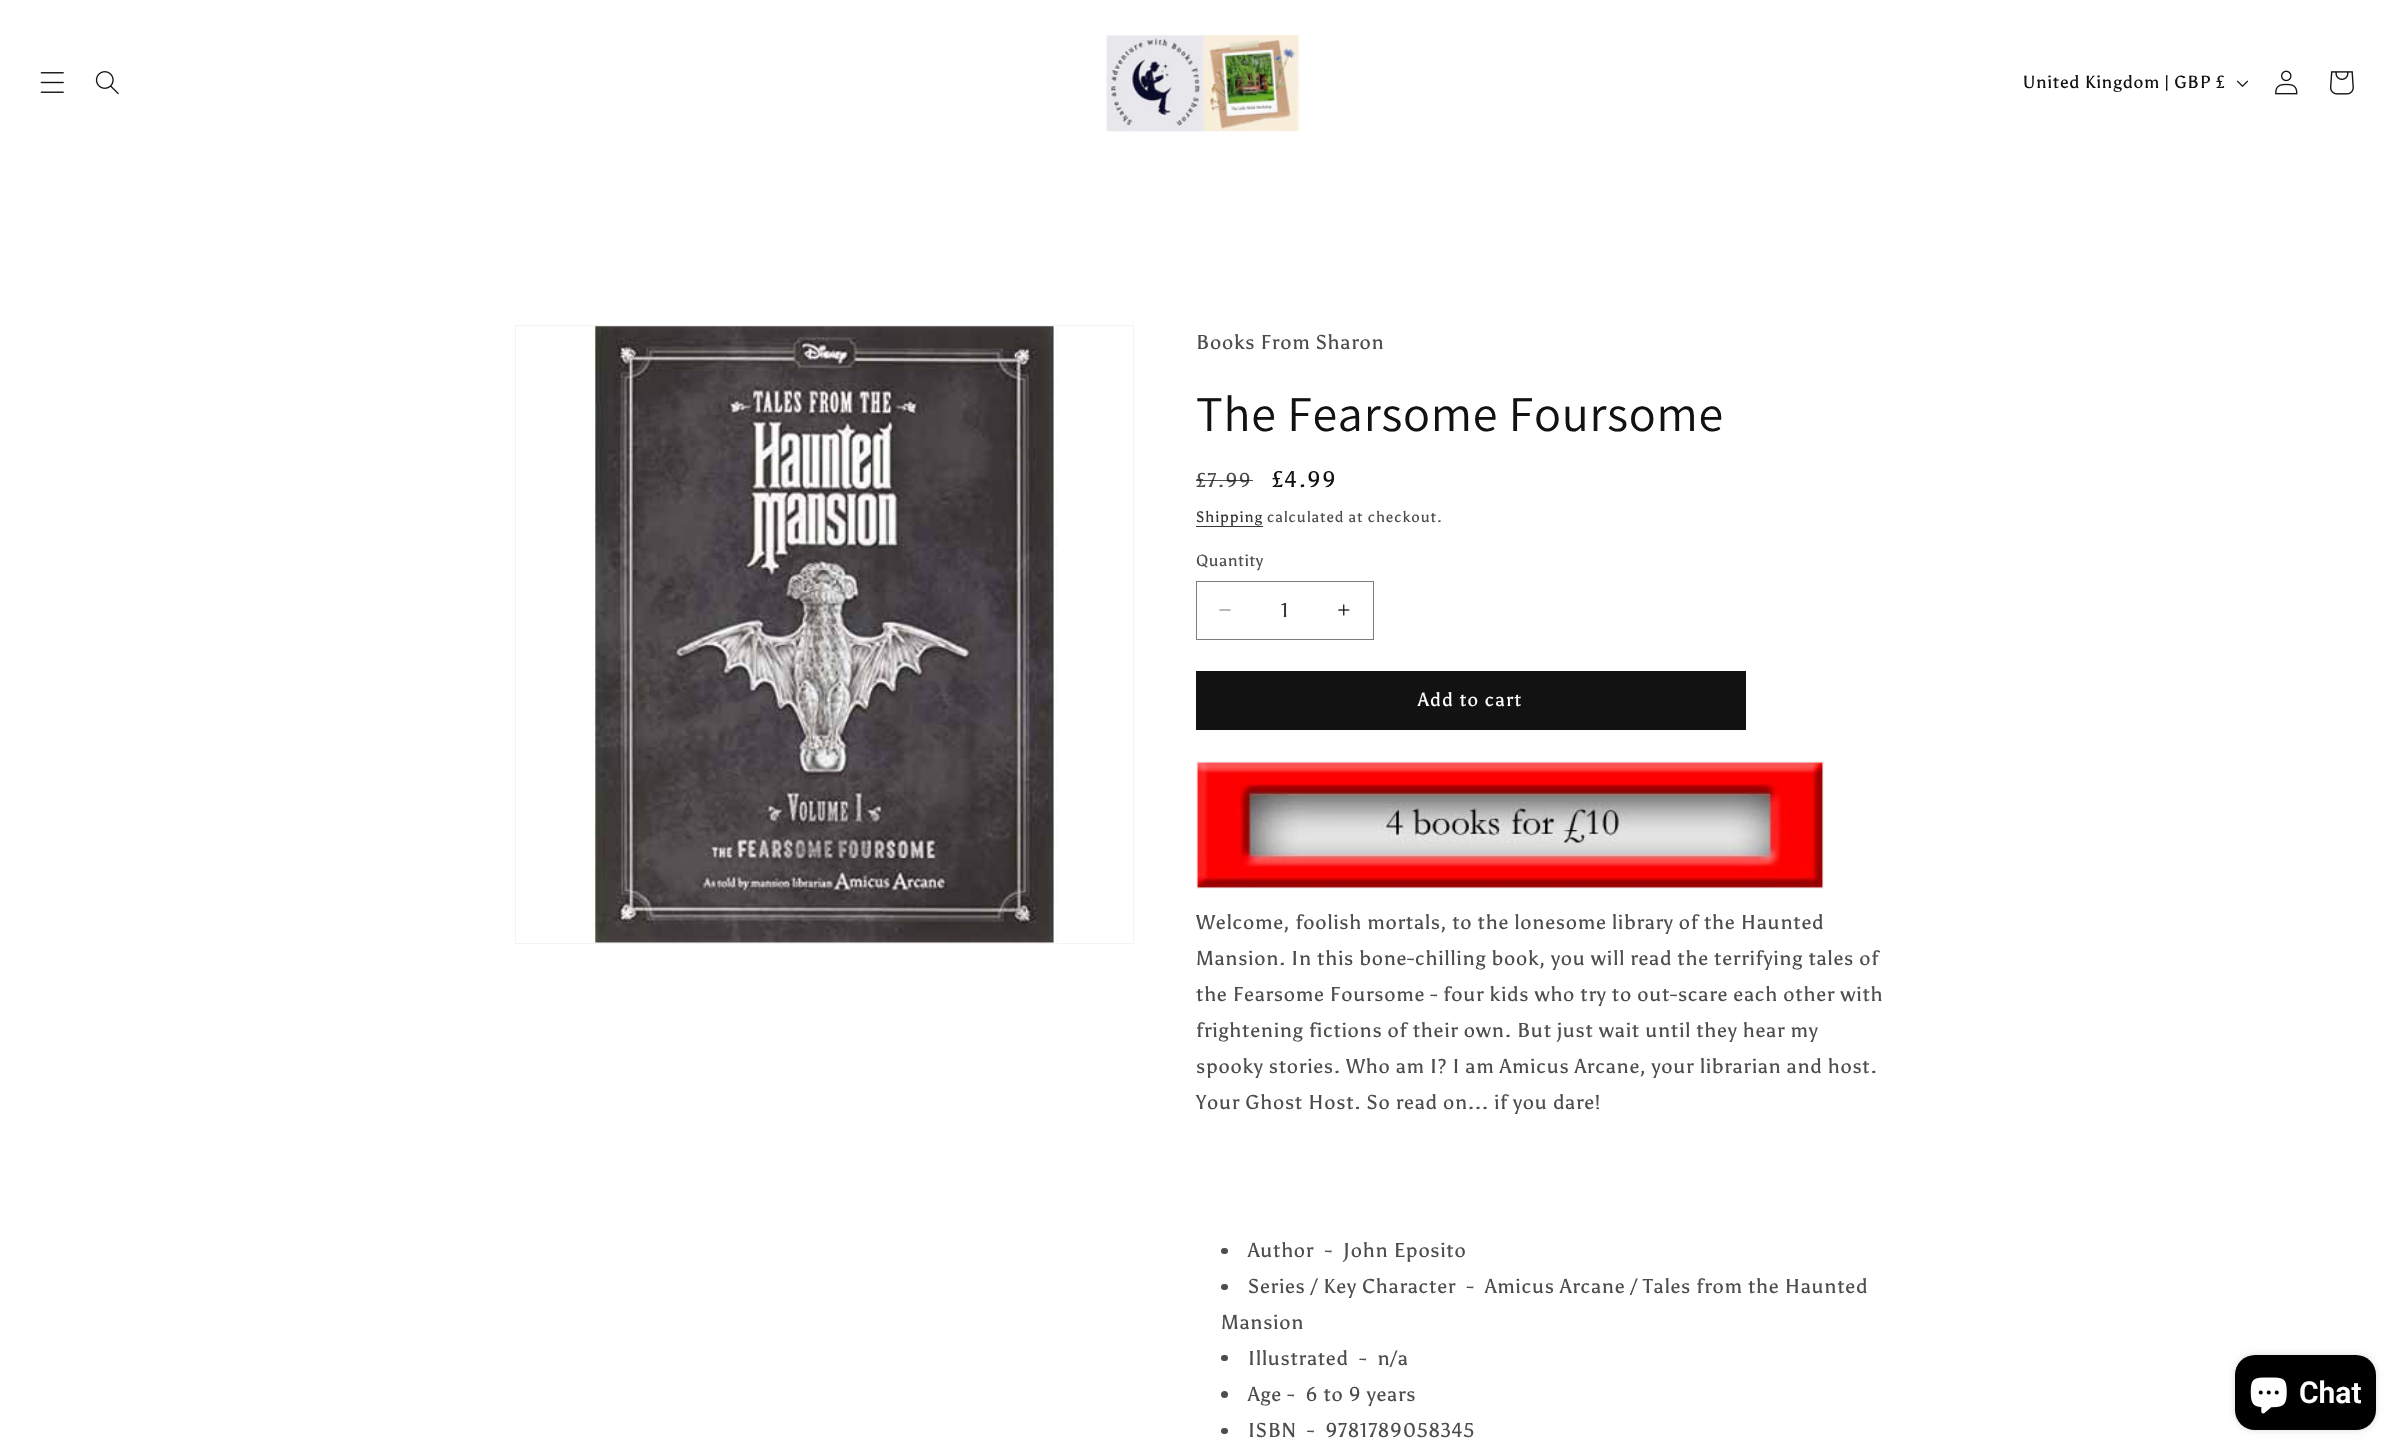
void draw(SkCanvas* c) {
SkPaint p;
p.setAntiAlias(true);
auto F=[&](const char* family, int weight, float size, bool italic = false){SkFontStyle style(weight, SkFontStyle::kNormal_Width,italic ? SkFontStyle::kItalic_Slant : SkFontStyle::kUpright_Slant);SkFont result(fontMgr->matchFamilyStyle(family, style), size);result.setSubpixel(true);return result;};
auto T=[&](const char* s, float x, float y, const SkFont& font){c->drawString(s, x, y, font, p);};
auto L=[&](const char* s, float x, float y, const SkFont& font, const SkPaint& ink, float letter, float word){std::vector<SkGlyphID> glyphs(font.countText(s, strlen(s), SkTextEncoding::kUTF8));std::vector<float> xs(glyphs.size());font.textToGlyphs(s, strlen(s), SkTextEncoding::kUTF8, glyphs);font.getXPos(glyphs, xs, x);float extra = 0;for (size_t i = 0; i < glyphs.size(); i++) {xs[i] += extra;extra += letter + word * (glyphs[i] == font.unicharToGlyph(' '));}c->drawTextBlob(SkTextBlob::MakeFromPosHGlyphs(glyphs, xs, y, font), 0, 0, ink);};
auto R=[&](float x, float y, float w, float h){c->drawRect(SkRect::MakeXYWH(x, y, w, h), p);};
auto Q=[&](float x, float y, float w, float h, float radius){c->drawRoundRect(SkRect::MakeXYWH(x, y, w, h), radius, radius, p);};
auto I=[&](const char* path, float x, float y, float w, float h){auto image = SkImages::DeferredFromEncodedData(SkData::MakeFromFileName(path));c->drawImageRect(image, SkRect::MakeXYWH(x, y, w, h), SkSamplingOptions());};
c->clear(0xffffffff);
I("1.png",40,72,24,21);
I("2.png",95,71,24,24);
I("3.png",1106,35,194,97);
auto f1 = F("Asul",400,17.5);
p.setColor(0xff121212);
L("United Kingdom | GBP £",2023,88,f1,p,.75,0);
I("4.png",2236,80,13,7);
I("5.png",2275,70,23,25);
I("6.png",2330,71,24,24);
p.setStroke(true);
p.setStrokeWidth(1);
p.setColor(0xfff3f3f3);
c->drawRect(SkRect::MakeXYWH(515.5,325.5,618,618),p);
I("7.png",590,326,468,617);
auto f2 = F("Asul",400,20);
p.setStroke(false);
p.setColor(0xff4d4d4d);
L("Books From Sharon",1196,349,f2,p,.75,0);
auto f3 = F("Assistant",400,50);
p.setColor(0xff121212);
L("The Fearsome Foursome",1196,431,f3,p,.75,0);
p.setColor(0xff4d4d4d);
L("£7.99",1196,487,f2,p,1.5,0);
p.setColor(0xbf121212);
R(1196,480,57,1);
auto f4 = F("Asul",400,22.5);
p.setColor(0xff121212);
L("£4.99",1272,487,f4,p,1.5,0);
auto f5 = F("Asul",400,15);
p.setColor(0xff363636);
L("Shipping",1196,522,f5,p,.9,0);
R(1196,526,67,1);
p.setColor(0xff4d4d4d);
L("calculated at checkout.",1267,522,f5,p,.9,0);
auto f6 = F("Asul",400,16.25);
L("Quantity",1196,566,f6,p,.5,0);
I("8.png",1219,609,12,2);
I("9.png",1338,604,12,12);
p.setStroke(true);
p.setColor(0xff7d7d7d);
c->drawRect(SkRect::MakeXYWH(1196.5,581.5,177,58),p);
p.setStroke(false);
p.setColor(0xff363636);
T("1",1281,617,f2);
p.setColor(0xff121212);
R(1196,671,550,59);
auto f7 = F("Asul",400,18.75);
p.setColor(0xffffffff);
L("Add to cart",1418,706,f7,p,1.25,0);
p.setStroke(true);
p.setColor(0xfff3f3f3);
c->drawRect(SkRect::MakeXYWH(1196.5,761.5,627,127),p);
I("10.png",1197,762,626,126);
p.setStroke(false);
p.setColor(0xff4d4d4d);
L("Welcome, foolish mortals, to the lonesome library of the Haunted",1196,929,f2,p,.75,0);
L("Mansion. In this bone-chilling book, you will read the terrifying tales of",1196,965,f2,p,.75,0);
L("the Fearsome Foursome - four kids who try to out-scare each other with",1196,1001,f2,p,.75,0);
L("frightening fictions of their own. But just wait until they hear my",1196,1037,f2,p,.75,0);
L("spooky stories. Who am I? I am Amicus Arcane, your librarian and host.",1196,1073,f2,p,.75,0);
L("Your Ghost Host. So read on... if you dare!",1196,1109,f2,p,.75,0);
Q(1221,1248,7,6,3);
L("Author  -  John Eposito",1248,1257,f2,p,.75,0);
Q(1221,1284,7,6,3);
L("Series / Key Character  -  Amicus Arcane / Tales from the Haunted",1248,1293,f2,p,.75,0);
L("Mansion",1221,1329,f2,p,.75,0);
Q(1221,1355,7,6,3);
L("Illustrated  -  n/a",1248,1365,f2,p,.75,0);
c->drawCircle(1224.5,1394.5,3.5,p);
L("Age -  6 to 9 years",1248,1401,f2,p,.75,0);
Q(1221,1428,7,6,3);
L("ISBN  -  9781789058345",1248,1437,f2,p,.75,0);
p.setColor(0x26000000);
p.setMaskFilter(SkMaskFilter::MakeBlur(kNormal_SkBlurStyle, 3));
c->drawRoundRect(SkRect::MakeXYWH(2235,1355,141,75),20,20,p);
p.setMaskFilter(nullptr);
p.setColor(0xff000000);
Q(2235,1355,141,75,20);
I("11.png",2250,1377,37,37);
auto f8 = F("Roboto",600,30);
p.setColor(0xffffffff);
T("Chat",2299,1403,f8);
}
